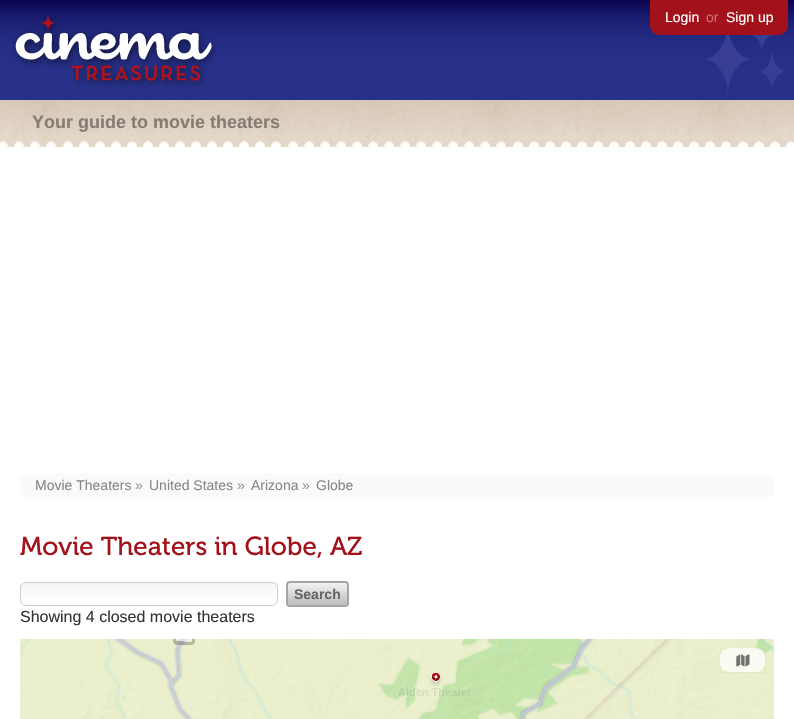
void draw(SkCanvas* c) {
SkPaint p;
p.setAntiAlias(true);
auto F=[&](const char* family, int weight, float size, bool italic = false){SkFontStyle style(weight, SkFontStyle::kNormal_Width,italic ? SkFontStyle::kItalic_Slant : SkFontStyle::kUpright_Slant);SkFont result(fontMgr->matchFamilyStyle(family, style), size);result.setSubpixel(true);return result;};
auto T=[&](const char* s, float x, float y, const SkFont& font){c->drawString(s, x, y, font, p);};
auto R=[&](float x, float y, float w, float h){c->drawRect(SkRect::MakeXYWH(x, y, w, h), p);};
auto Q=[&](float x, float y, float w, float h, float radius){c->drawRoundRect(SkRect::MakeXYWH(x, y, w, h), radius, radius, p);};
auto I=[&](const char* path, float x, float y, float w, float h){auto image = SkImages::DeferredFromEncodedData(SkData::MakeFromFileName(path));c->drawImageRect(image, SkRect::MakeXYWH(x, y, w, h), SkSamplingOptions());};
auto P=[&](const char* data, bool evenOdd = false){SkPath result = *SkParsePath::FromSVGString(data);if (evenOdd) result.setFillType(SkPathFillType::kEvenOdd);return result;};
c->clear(0xffffffff);
I("1.png",0,0,794,100);
I("2.png",12,15,206,73);
p.setColor(0xffa3121b);
c->drawPath(P("M650 0h138v25c0 5.5-4.5 10-10 10h-118c-5.5 0-10-4.5-10-10z"),p);
auto f1 = F("Liberation Sans",400,14);
p.setColor(0xffffffff);
T("Login",665,22,f1);
p.setColor(0xffc87176);
T("or",706,22,f1);
p.setColor(0xffffffff);
T("Sign up",726,22,f1);
I("3.png",704,35,81,58);
I("4.png",0,100,794,48);
auto f2 = F("Liberation Sans",700,18);
p.setColor(0xff857d74);
T("Your guide to movie theaters",32,128,f2);
p.setColor(0xfffafafa);
Q(20,473,754,24,6);
p.setColor(0xff888888);
T("Movie Theaters",35,490,f1);
p.setColor(0xff999999);
T("»",135,490,f1);
p.setColor(0xff888888);
T("United States",149,490,f1);
p.setColor(0xff999999);
T("»",237,490,f1);
p.setColor(0xff888888);
T("Arizona",251,490,f1);
p.setColor(0xff999999);
T("»",302,490,f1);
p.setColor(0xff888888);
T("Globe",316,490,f1);
auto f3 = F("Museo",400,26);
p.setColor(0xffa3121b);
T("Movie Theaters in Globe, AZ",20,555,f3);
c->save();
c->clipPath(P("M26 582h246c3.5 0 6 2.5 6 6v12c0 3.5-2.5 6-6 6h-246c-3.5 0-6-2.5-6-6v-12c0-3.5 2.5-6 6-6z"),true);
{
const SkColor colors[] = {0xfff6f6f6,0xffffffff};
const float stops[] = {0,1};
const SkPoint ends[] = {{149,583}, {149,605}};
p.setShader(SkGradientShader::MakeLinear(ends, colors, stops, 2, SkTileMode::kClamp));
p.setAlpha(255);
}
R(20,583,258,22);
c->restore();
p.setStroke(true);
p.setStrokeWidth(1);
p.setShader(nullptr);
p.setColor(0xffcccccc);
c->drawRoundRect(SkRect::MakeXYWH(20.5,582.5,257,23),5.5,5.5,p);
p.setStroke(false);
{
const SkColor colors[] = {0xfff2f2f2,0xffbdbdbd};
const float stops[] = {0,1};
const SkPoint ends[] = {{318,583}, {318,605}};
p.setShader(SkGradientShader::MakeLinear(ends, colors, stops, 2, SkTileMode::kClamp));
p.setAlpha(255);
}
Q(288,583,59,22,2);
p.setStroke(true);
p.setStrokeWidth(2);
p.setShader(nullptr);
p.setColor(0xffa6a6a6);
c->drawRoundRect(SkRect::MakeXYWH(287,582,61,24),3,3,p);
auto f4 = F("Liberation Sans",700,14);
p.setStroke(false);
p.setColor(0xff666666);
T("Search",294,599,f4);
auto f5 = F("Liberation Sans",400,16);
p.setColor(0xff333333);
T("Showing 4 closed movie theaters",20,622,f5);
I("5.png",20,639,754,80);
I("6.png",20,639,754,80);
p.setStroke(true);
p.setStrokeWidth(.5);
p.setColor(0x0d000000);
c->drawRect(SkRect::MakeXYWH(720.25,648.25,45.5,24.5),p);
p.setStroke(false);
p.setColor(0xbfffffff);
Q(720,648,45,24,9);
I("7.png",736,654,14,13);
}
